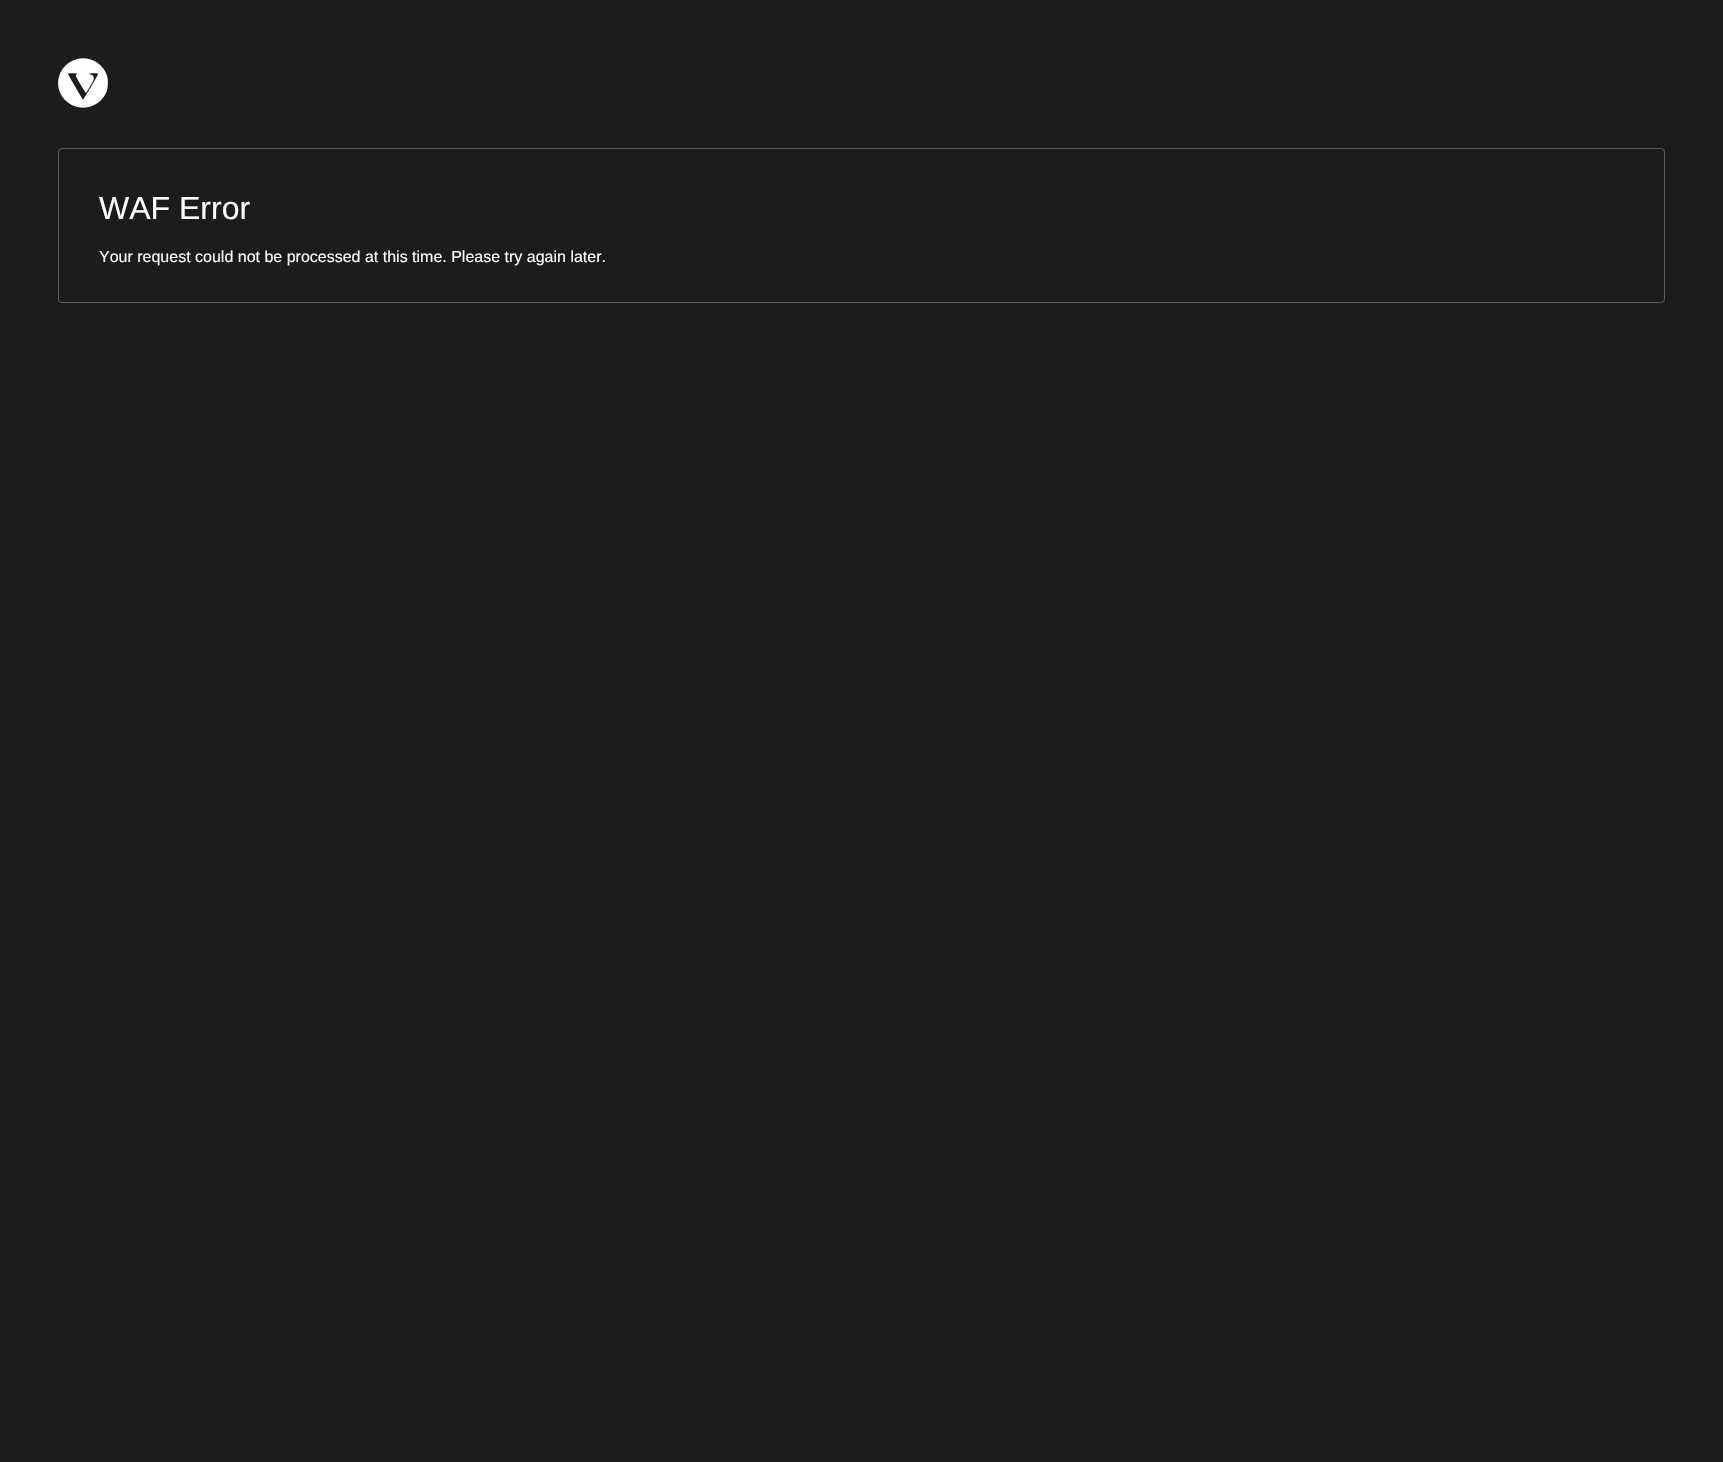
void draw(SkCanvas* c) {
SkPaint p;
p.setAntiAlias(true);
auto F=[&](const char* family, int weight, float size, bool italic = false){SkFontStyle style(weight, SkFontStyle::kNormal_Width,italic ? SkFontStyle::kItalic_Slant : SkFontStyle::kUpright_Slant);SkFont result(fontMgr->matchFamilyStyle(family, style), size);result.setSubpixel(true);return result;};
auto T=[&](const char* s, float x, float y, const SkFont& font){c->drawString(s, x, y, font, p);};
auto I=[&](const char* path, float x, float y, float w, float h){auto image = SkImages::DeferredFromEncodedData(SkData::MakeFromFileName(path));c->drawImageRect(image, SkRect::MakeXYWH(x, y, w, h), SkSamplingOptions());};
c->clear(0xff1c1c1c);
I("1.png",58,58,50,50);
p.setStroke(true);
p.setStrokeWidth(1);
p.setColor(0xff5b5b5b);
c->drawRoundRect(SkRect::MakeXYWH(58.5,148.5,1606,154),3.5,3.5,p);
auto f1 = F("Liberation Sans",400,32);
p.setStroke(false);
p.setColor(0xffffffff);
T("WAF Error",99,219,f1);
auto f2 = F("Liberation Sans",400,16);
T("Your request could not be processed at this time. Please try again later.",99,262,f2);
}
